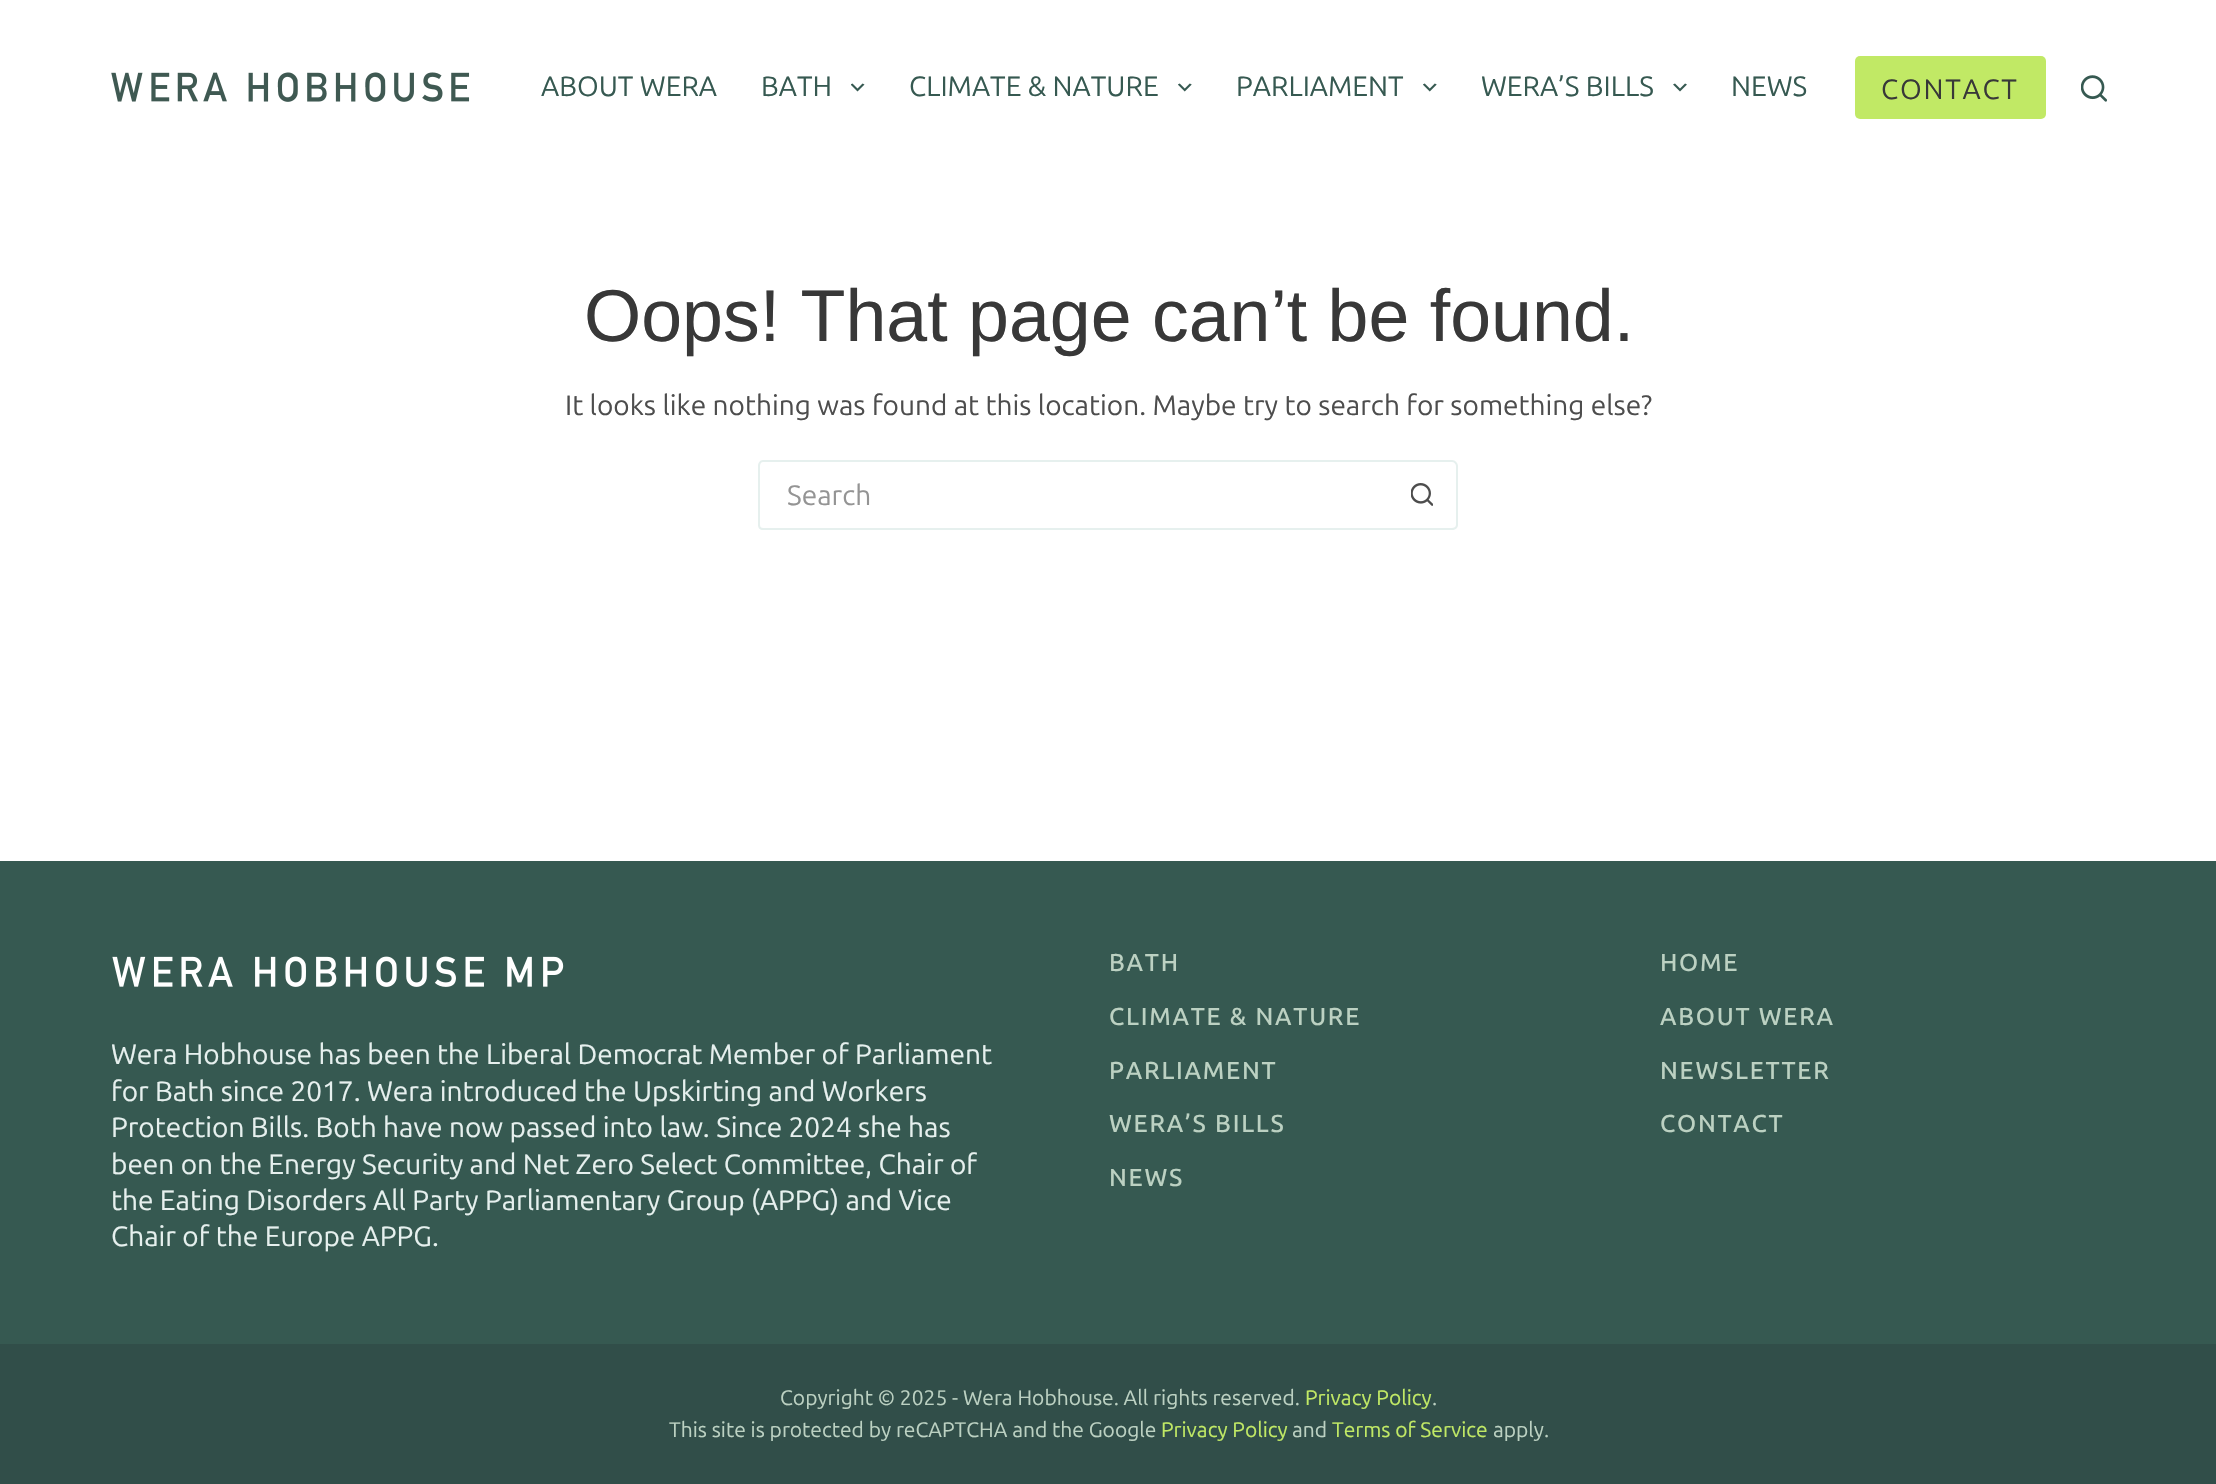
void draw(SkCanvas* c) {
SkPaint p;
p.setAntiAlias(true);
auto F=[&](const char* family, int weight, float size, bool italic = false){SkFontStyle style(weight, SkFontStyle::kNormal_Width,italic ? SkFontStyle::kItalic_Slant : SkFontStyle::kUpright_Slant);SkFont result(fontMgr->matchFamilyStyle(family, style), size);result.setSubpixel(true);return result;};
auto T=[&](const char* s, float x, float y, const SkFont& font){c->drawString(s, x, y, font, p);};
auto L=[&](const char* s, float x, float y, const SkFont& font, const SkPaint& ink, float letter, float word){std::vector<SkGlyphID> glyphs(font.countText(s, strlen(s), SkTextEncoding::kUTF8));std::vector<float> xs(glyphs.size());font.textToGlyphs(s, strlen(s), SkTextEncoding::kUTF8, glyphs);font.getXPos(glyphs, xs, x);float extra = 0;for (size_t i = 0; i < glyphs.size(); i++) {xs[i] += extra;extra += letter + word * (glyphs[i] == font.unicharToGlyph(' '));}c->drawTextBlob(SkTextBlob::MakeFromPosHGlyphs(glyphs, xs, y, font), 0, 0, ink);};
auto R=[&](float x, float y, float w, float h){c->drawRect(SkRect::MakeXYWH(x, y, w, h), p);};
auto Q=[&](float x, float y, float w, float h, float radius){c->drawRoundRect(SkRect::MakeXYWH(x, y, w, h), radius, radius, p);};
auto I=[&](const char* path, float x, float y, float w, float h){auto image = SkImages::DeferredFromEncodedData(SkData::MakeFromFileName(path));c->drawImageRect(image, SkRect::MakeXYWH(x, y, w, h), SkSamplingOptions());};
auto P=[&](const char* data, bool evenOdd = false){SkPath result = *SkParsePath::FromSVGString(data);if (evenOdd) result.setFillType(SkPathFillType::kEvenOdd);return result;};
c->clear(0xffffffff);
I("1.png",111,72,359,30);
auto f1 = F("Ubuntu Sans",400,28);
p.setColor(0xff365951);
T("ABOUT WERA",541,96,f1);
T("BATH",761,96,f1);
I("2.png",851,83,14,9);
T("CLIMATE & NATURE",909,96,f1);
I("3.png",1178,83,14,9);
T("PARLIAMENT",1236,96,f1);
I("3.png",1423,83,14,9);
T("WERA’S BILLS",1481,96,f1);
I("4.png",1673,83,14,9);
T("NEWS",1731,96,f1);
p.setColor(0xffc1e965);
Q(1855,56,191,63,5);
p.setColor(0xff383838);
L("CONTACT",1881,99,f1,p,1.75,0);
I("5.png",2081,75,26,27);
auto f2 = F("Liberation Sans",400,73.5);
T("Oops! That page can’t be found.",584,341,f2);
p.setColor(0xff4d4d4d);
T("It looks like nothing was found at this location. Maybe try to search for something else?",565,415,f1);
p.setColor(0xffe6f0ee);
c->drawPath(P("M763 460h625v70h-625c-3 0-5-2-5-5v-59c0-3 2-6 5-6zm0 2h625v66h-625c-2 0-3-1-3-3v-59c0-2 1-4 3-4z",true),p);
p.setColor(0xff949494);
T("Search",787,505,f1);
p.setColor(0xffe6f0ee);
c->drawPath(P("M1388 460h64c3 0 6 3 6 6v59c0 3-3 5-6 5h-64zm0 2h64c2 0 4 2 4 4v59c0 2-2 3-4 3h-64z",true),p);
I("6.png",1411,483,22,23);
p.setColor(0xff365951);
R(0,861,2216,483);
I("7.png",112,956,452,31);
p.setColor(0xffe6f0ee);
T("Wera Hobhouse has been the Liberal Democrat Member of Parliament",111,1064,f1);
T("for Bath since 2017. Wera introduced the Upskirting and Workers",111,1101,f1);
T("Protection Bills. Both have now passed into law. Since 2024 she has",111,1137,f1);
T("been on the Energy Security and Net Zero Select Committee, Chair of",111,1174,f1);
T("the Eating Disorders All Party Parliamentary Group (APPG) and Vice",111,1210,f1);
T("Chair of the Europe APPG.",111,1246,f1);
auto f3 = F("Ubuntu Sans",500,24.5);
p.setColor(0xffbcd1c2);
L("BATH",1109,971,f3,p,1.75,0);
L("CLIMATE & NATURE",1109,1025,f3,p,1.75,0);
L("PARLIAMENT",1109,1079,f3,p,1.75,0);
L("WERA’S BILLS",1109,1132,f3,p,1.75,0);
L("NEWS",1109,1186,f3,p,1.75,0);
L("HOME",1660,971,f3,p,1.75,0);
L("ABOUT WERA",1660,1025,f3,p,1.75,0);
L("NEWSLETTER",1660,1079,f3,p,1.75,0);
L("CONTACT",1660,1132,f3,p,1.75,0);
p.setColor(0xff314e49);
R(0,1344,2216,140);
auto f4 = F("Ubuntu Sans",400,21);
p.setColor(0xffbcd1c2);
T("Copyright © 2025 - Wera Hobhouse. All rights reserved.",780,1405,f4);
p.setColor(0xffc1e965);
T("Privacy Policy",1305,1405,f4);
p.setColor(0xffbcd1c2);
T(".",1432,1405,f4);
T("This site is protected by reCAPTCHA and the Google",669,1437,f4);
p.setColor(0xffc1e965);
T("Privacy Policy",1161,1437,f4);
p.setColor(0xffbcd1c2);
T("and",1292,1437,f4);
p.setColor(0xffc1e965);
T("Terms of Service",1332,1437,f4);
p.setColor(0xffbcd1c2);
T("apply.",1493,1437,f4);
}
